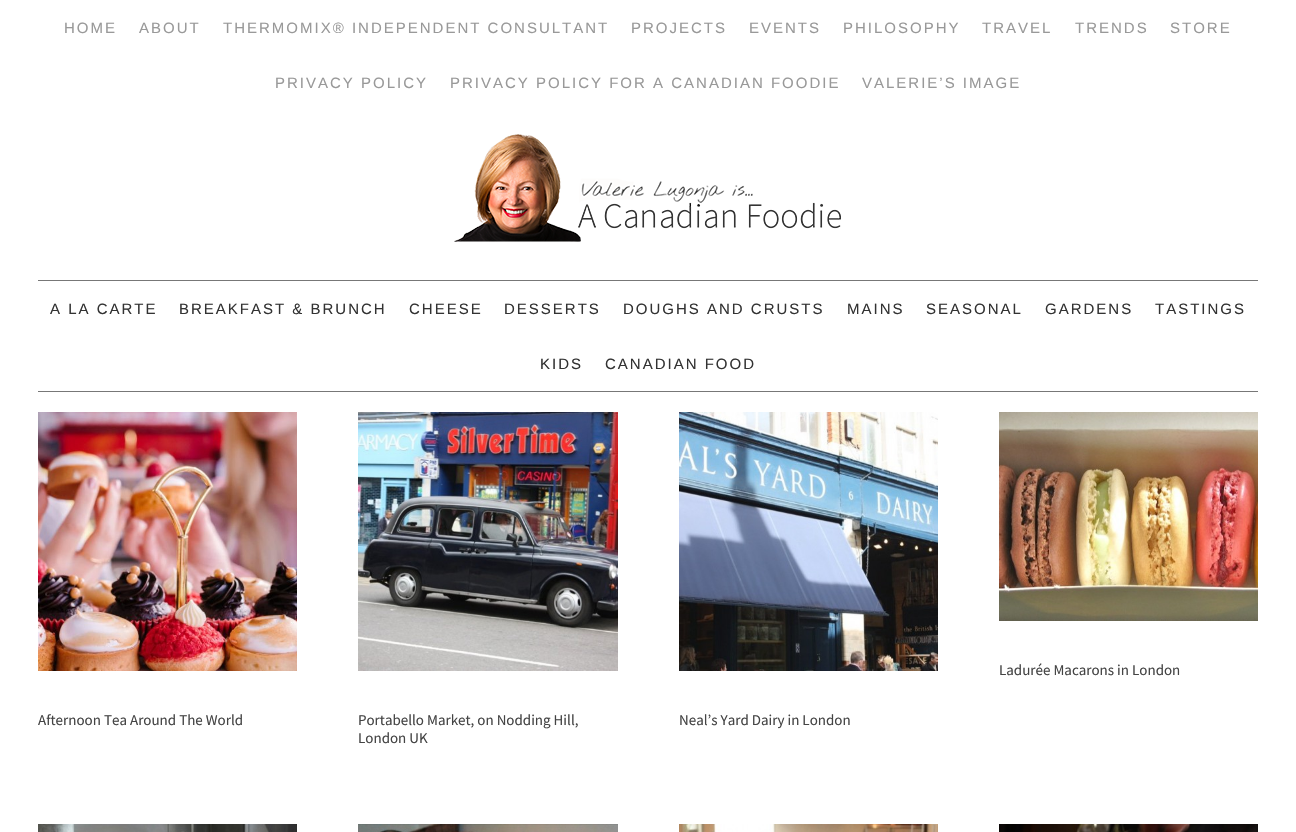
void draw(SkCanvas* c) {
SkPaint p;
p.setAntiAlias(true);
auto F=[&](const char* family, int weight, float size, bool italic = false){SkFontStyle style(weight, SkFontStyle::kNormal_Width,italic ? SkFontStyle::kItalic_Slant : SkFontStyle::kUpright_Slant);SkFont result(fontMgr->matchFamilyStyle(family, style), size);result.setSubpixel(true);return result;};
auto T=[&](const char* s, float x, float y, const SkFont& font){c->drawString(s, x, y, font, p);};
auto L=[&](const char* s, float x, float y, const SkFont& font, const SkPaint& ink, float letter, float word){std::vector<SkGlyphID> glyphs(font.countText(s, strlen(s), SkTextEncoding::kUTF8));std::vector<float> xs(glyphs.size());font.textToGlyphs(s, strlen(s), SkTextEncoding::kUTF8, glyphs);font.getXPos(glyphs, xs, x);float extra = 0;for (size_t i = 0; i < glyphs.size(); i++) {xs[i] += extra;extra += letter + word * (glyphs[i] == font.unicharToGlyph(' '));}c->drawTextBlob(SkTextBlob::MakeFromPosHGlyphs(glyphs, xs, y, font), 0, 0, ink);};
auto R=[&](float x, float y, float w, float h){c->drawRect(SkRect::MakeXYWH(x, y, w, h), p);};
auto I=[&](const char* path, float x, float y, float w, float h){auto image = SkImages::DeferredFromEncodedData(SkData::MakeFromFileName(path));c->drawImageRect(image, SkRect::MakeXYWH(x, y, w, h), SkSamplingOptions());};
c->clear(0xffffffff);
auto f1 = F("Liberation Sans",400,15);
p.setColor(0xff999999);
L("HOME",64,33,f1,p,2,0);
L("ABOUT",139,33,f1,p,2,0);
L("THERMOMIX® INDEPENDENT CONSULTANT",223,33,f1,p,2,0);
L("PROJECTS",631,33,f1,p,2,0);
L("EVENTS",749,33,f1,p,2,0);
L("PHILOSOPHY",843,33,f1,p,2,0);
L("TRAVEL",982,33,f1,p,2,0);
L("TRENDS",1075,33,f1,p,2,0);
L("STORE",1170,33,f1,p,2,0);
L("PRIVACY POLICY",275,88,f1,p,2,0);
L("PRIVACY POLICY FOR A CANADIAN FOODIE",450,88,f1,p,2,0);
L("VALERIE’S IMAGE",862,88,f1,p,2,0);
I("1.png",454,134,387,108);
p.setColor(0xff777777);
R(38,280,1220,1);
R(38,391,1220,1);
p.setColor(0xff333333);
L("A LA CARTE",50,314,f1,p,2,0);
L("BREAKFAST & BRUNCH",179,314,f1,p,2,0);
L("CHEESE",409,314,f1,p,2,0);
L("DESSERTS",504,314,f1,p,2,0);
L("DOUGHS AND CRUSTS",623,314,f1,p,2,0);
L("MAINS",847,314,f1,p,2,0);
L("SEASONAL",926,314,f1,p,2,0);
L("GARDENS",1045,314,f1,p,2,0);
L("TASTINGS",1155,314,f1,p,2,0);
L("KIDS",540,369,f1,p,2,0);
L("CANADIAN FOOD",605,369,f1,p,2,0);
I("2.png",999,412,259,209);
auto f2 = F("Source Sans Pro",400,15);
p.setColor(0xff444444);
T("Ladurée Macarons in London",999,675,f2);
I("3.png",38,412,259,259);
T("Afternoon Tea Around The World",38,725,f2);
I("4.png",358,412,260,259);
T("Portabello Market, on Nodding Hill,",358,725,f2);
T("London UK",358,743,f2);
I("5.png",679,412,259,259);
T("Neal’s Yard Dairy in London",679,725,f2);
I("6.png",38,824,259,8);
I("7.png",358,824,260,8);
I("8.png",679,824,259,8);
I("9.png",999,824,259,8);
}
